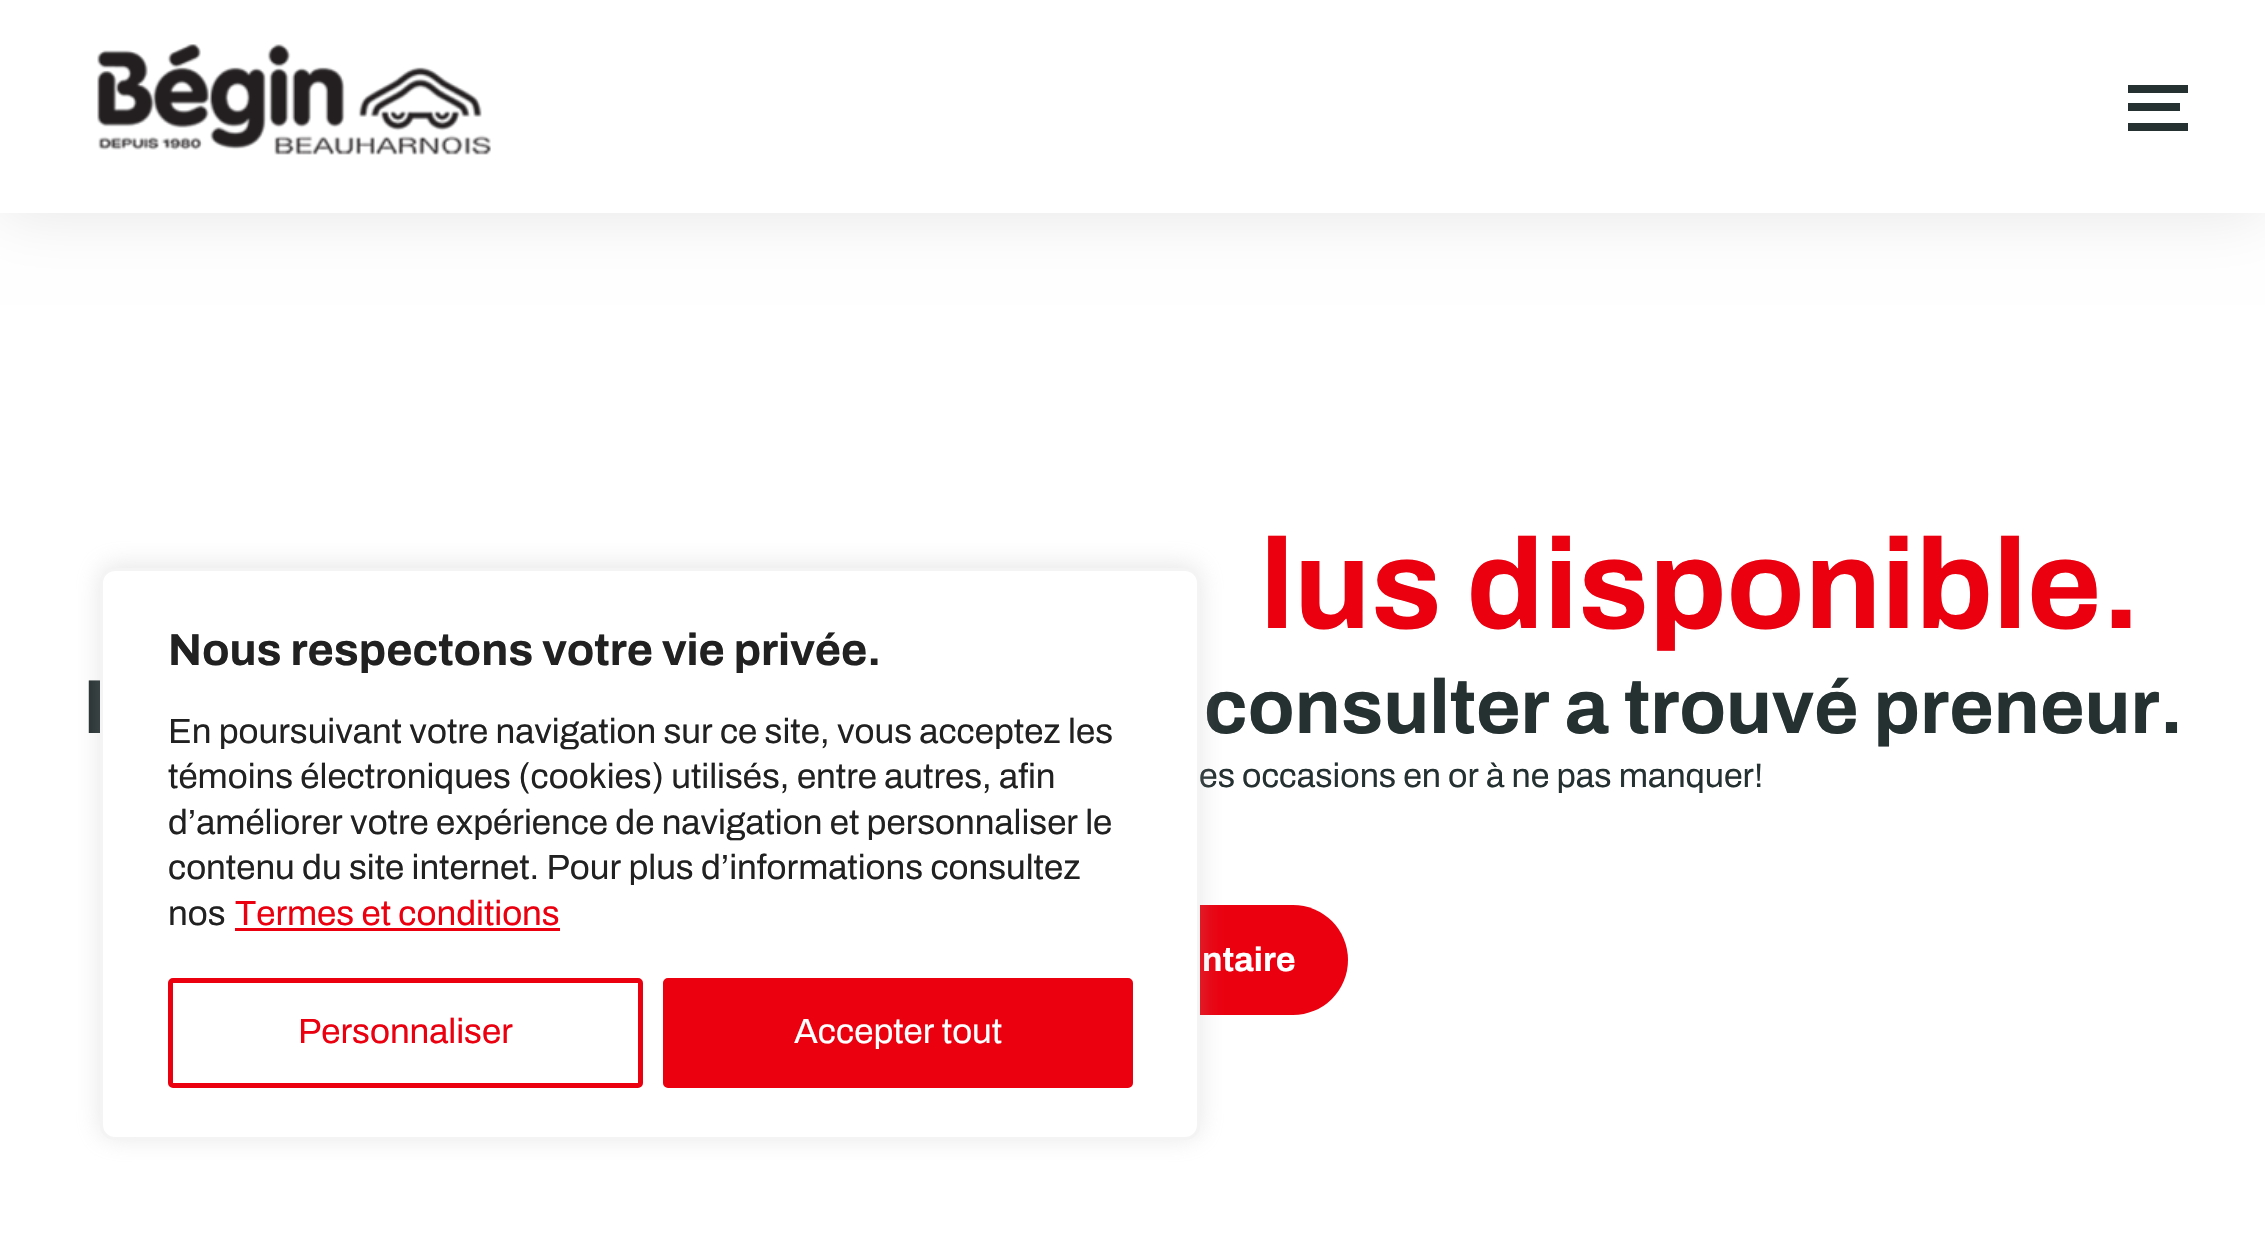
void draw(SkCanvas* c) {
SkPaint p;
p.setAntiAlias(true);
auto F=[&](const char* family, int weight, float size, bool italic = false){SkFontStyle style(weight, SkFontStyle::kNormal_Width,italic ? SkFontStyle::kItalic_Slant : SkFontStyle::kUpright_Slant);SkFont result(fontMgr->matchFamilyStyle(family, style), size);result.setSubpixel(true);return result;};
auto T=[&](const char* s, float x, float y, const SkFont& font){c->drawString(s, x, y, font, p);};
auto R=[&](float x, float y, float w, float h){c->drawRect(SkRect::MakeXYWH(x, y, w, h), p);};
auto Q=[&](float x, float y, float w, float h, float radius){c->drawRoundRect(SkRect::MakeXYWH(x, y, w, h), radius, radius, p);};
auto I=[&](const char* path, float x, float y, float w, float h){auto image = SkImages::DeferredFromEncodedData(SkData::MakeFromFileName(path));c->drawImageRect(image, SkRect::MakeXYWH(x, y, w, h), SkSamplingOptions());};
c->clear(0xffffffff);
p.setColor(0x1a000000);
p.setMaskFilter(SkMaskFilter::MakeBlur(kNormal_SkBlurStyle, 31));
c->drawRect(SkRect::MakeXYWH(0,0,2265,213),p);
p.setMaskFilter(nullptr);
p.setColor(0xffffffff);
R(0,0,2265,213);
I("1.png",97,44,394,111);
p.setColor(0xff253031);
R(2128,103,52,8);
R(2128,85,60,8);
R(2128,123,60,8);
auto f1 = F("Archivo",700,127.5);
p.setColor(0xffea000f);
T("lus disponible.",1260,628,f1);
auto f2 = F("Archivo",700,76.5);
p.setColor(0xff253031);
T("L",83,733,f2);
T("consulter a trouvé preneur.",1204,733,f2);
auto f3 = F("Archivo",400,34);
T("es occasions en or à ne pas manquer!",1199,787,f3);
p.setColor(0xffea000f);
Q(918,905,430,110,55);
auto f4 = F("Archivo",700,34);
p.setColor(0xffffffff);
T("ntaire",1202,971,f4);
p.setColor(0x4dacabab);
p.setMaskFilter(SkMaskFilter::MakeBlur(kNormal_SkBlurStyle, 12.5));
c->drawRoundRect(SkRect::MakeXYWH(100,565,1100,573),15,15,p);
p.setMaskFilter(nullptr);
p.setColor(0xffffffff);
c->drawRoundRect(SkRect::MakeXYWH(101.5,569.5,1097,569),13.5,13.5,p);
p.setStroke(true);
p.setStrokeWidth(3);
p.setColor(0xfff4f4f4);
c->drawRoundRect(SkRect::MakeXYWH(101.5,569.5,1097,569),13.5,13.5,p);
auto f5 = F("Archivo",700,45);
p.setStroke(false);
p.setColor(0xff212121);
T("Nous respectons votre vie privée.",168,665,f5);
auto f6 = F("Archivo",400,35);
T("En poursuivant votre navigation sur ce site, vous acceptez les",168,743,f6);
T("témoins électroniques (cookies) utilisés, entre autres, afin",168,788,f6);
T("d’améliorer votre expérience de navigation et personnaliser le",168,834,f6);
T("contenu du site internet. Pour plus d’informations consultez",168,879,f6);
T("nos",168,925,f6);
p.setColor(0xffea000f);
T("Termes et conditions",235,925,f6);
R(235,928,325,3);
p.setStroke(true);
p.setStrokeWidth(5);
c->drawRoundRect(SkRect::MakeXYWH(170.5,980.5,470,105),2.5,2.5,p);
p.setStroke(false);
T("Personnaliser",298,1043,f6);
c->drawRoundRect(SkRect::MakeXYWH(665.5,980.5,465,105),2.5,2.5,p);
p.setStroke(true);
c->drawRoundRect(SkRect::MakeXYWH(665.5,980.5,465,105),2.5,2.5,p);
p.setStroke(false);
p.setColor(0xffffffff);
T("Accepter tout",794,1043,f6);
}
